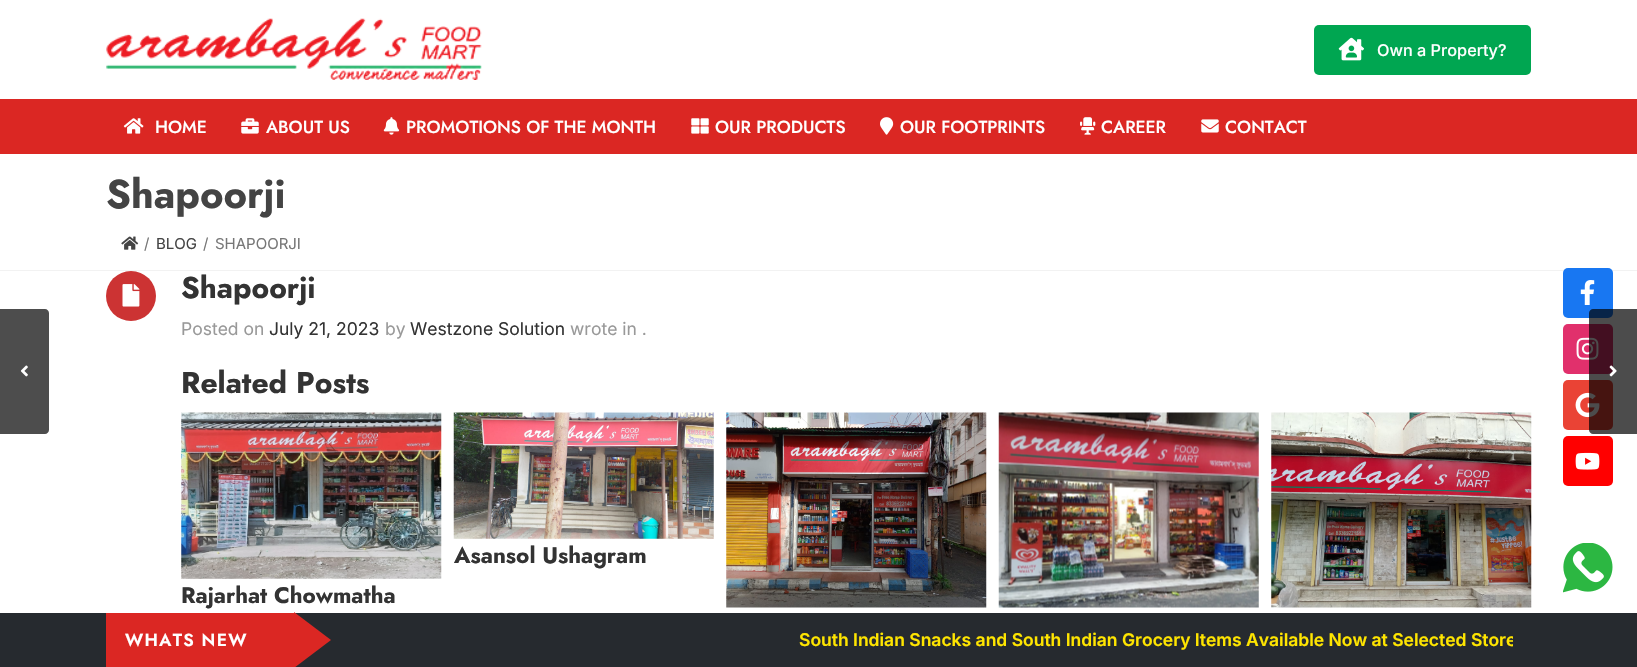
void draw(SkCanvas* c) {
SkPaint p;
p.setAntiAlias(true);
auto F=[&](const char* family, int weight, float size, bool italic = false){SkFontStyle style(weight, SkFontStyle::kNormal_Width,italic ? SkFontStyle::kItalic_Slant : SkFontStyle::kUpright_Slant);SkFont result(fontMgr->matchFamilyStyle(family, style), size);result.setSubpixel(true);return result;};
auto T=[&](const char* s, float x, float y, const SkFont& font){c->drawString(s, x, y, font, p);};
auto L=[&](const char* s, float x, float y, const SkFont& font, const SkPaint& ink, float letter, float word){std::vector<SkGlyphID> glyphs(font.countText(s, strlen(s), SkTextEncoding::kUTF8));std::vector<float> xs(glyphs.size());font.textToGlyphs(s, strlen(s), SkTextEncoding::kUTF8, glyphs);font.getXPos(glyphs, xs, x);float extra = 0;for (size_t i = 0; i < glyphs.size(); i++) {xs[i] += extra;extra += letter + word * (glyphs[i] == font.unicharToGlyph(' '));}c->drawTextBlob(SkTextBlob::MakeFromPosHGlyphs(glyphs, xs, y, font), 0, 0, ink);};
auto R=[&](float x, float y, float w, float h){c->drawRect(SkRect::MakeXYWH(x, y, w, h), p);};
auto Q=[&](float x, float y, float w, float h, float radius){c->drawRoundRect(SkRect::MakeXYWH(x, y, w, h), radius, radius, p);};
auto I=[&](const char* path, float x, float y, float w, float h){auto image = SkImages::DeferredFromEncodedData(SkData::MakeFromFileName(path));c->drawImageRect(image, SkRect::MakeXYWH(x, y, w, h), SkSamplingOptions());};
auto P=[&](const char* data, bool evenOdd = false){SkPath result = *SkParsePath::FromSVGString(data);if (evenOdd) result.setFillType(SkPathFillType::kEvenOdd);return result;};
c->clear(0xffffffff);
I("1.png",106,18,376,62);
p.setColor(0xff00a651);
Q(1314,25,217,50,5);
I("2.png",1338,37,26,24);
auto f1 = F("Inter",500,16.25);
p.setColor(0xffffffff);
T("Own a Property?",1377,56,f1);
p.setColor(0xffdb2723);
R(0,99,1637,55);
I("3.png",123,118,21,16);
auto f2 = F("Jost",500,17.5);
p.setColor(0xffffffff);
T("HOME",155,133,f2);
I("4.png",241,118,18,16);
T("ABOUT US",266,133,f2);
I("5.png",383,117,17,18);
T("PROMOTIONS OF THE MONTH",406,133,f2);
I("6.png",691,118,18,16);
T("OUR PRODUCTS",715,133,f2);
I("7.png",880,117,14,18);
T("OUR FOOTPRINTS",900,133,f2);
I("8.png",1080,117,16,18);
T("CAREER",1101,133,f2);
I("9.png",1201,119,18,14);
T("CONTACT",1225,133,f2);
p.setColor(0xfff2f2f2);
R(0,270,1637,1);
auto f3 = F("Jost",700,40);
p.setColor(0xff444444);
T("Shapoorji",106,208,f3);
I("10.png",121,236,18,14);
auto f4 = F("Inter",400,15);
p.setColor(0xff777777);
T("/",144,249,f4);
p.setColor(0xff444444);
T("BLOG",156,249,f4);
p.setColor(0xff777777);
T("/",203,249,f4);
T("SHAPOORJI",215,249,f4);
p.setColor(0xffcc3333);
c->drawCircle(131,296,25,p);
I("11.png",122,284,18,23);
auto f5 = F("Jost",700,30);
p.setColor(0xff333333);
T("Shapoorji",181,298,f5);
auto f6 = F("Inter",400,17.5);
p.setColor(0xff999999);
T("Posted on",181,335,f6);
p.setColor(0xff333333);
T("July 21, 2023",269,335,f6);
p.setColor(0xff999999);
T("by",385,335,f6);
p.setColor(0xff333333);
T("Westzone Solution",410,335,f6);
p.setColor(0xff999999);
T("wrote in .",570,335,f6);
p.setColor(0xff333333);
T("Related Posts",181,393,f5);
I("12.png",453,412,261,127);
auto f7 = F("Jost",700,22.5);
T("Asansol Ushagram",454,563,f7);
I("13.png",726,412,261,196);
I("14.png",998,412,261,196);
I("15.png",1271,412,261,196);
I("16.png",181,412,261,167);
T("Rajarhat Chowmatha",181,603,f7);
p.setColor(0xff4d4d4d);
c->drawPath(P("M0 309h45c2 0 4 2 4 4v117c0 2-2 4-4 4h-45z"),p);
I("17.png",20,365,8,12);
p.setColor(0xff1877f2);
Q(1563,268,50,50,5);
p.setColor(0xffe1306c);
Q(1563,324,50,50,5);
I("20.png",1576,337,23,23);
p.setColor(0xffea4335);
Q(1563,380,50,50,5);
I("21.png",1575,392,25,26);
p.setColor(0xb3000000);
c->drawPath(P("M1593 309h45v125h-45c-2 0-4-2-4-4v-117c0-2 2-4 4-4z"),p);
I("18.png",1609,365,8,12);
I("19.png",1580,280,15,25);
p.setColor(0xffff0000);
Q(1563,436,50,50,5);
I("22.png",1575,452,25,18);
I("23.png",1563,543,50,50);
p.setColor(0xff262a2f);
R(0,613,1637,54);
p.setColor(0xffdb2723);
R(106,613,188,54);
auto f8 = F("Jost",600,17.5);
p.setColor(0xffffffff);
L("WHATS NEW",125,646,f8,p,1.25,0);
p.setColor(0xffdb2723);
c->drawPath(P("M294 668v-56l37 28z"),p);
c->save();
c->clipRect(SkRect::MakeXYWH(356,613,1157,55));
auto f9 = F("Inter",600,17.5);
p.setColor(0xffffe500);
T("South Indian Snacks and South Indian Grocery Items Available Now at Selected Store",799,646,f9);
c->restore();
}
